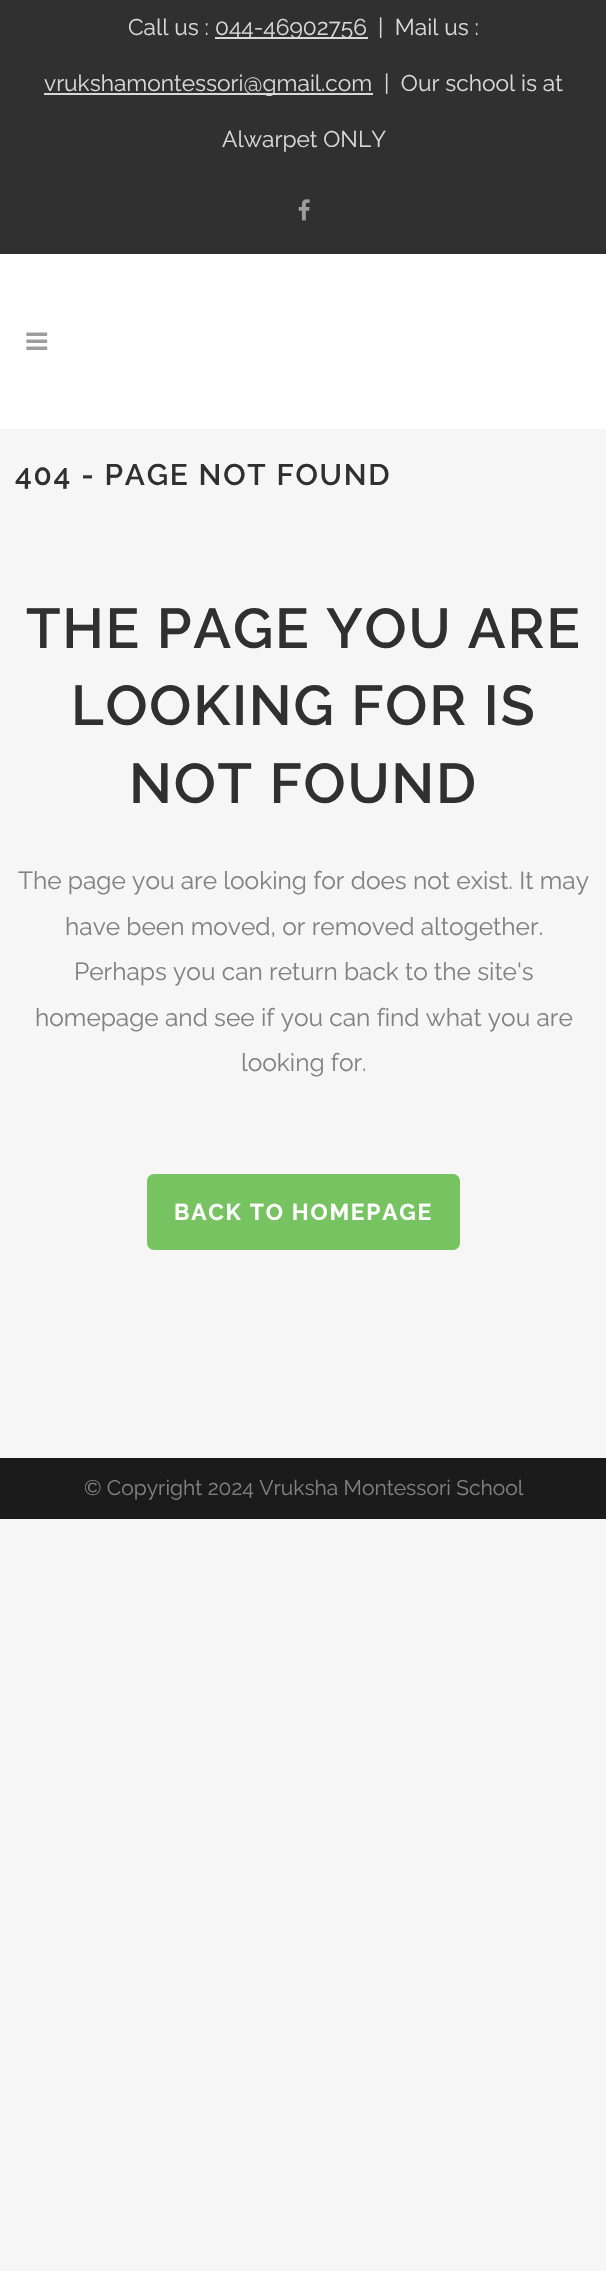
void draw(SkCanvas* c) {
SkPaint p;
p.setAntiAlias(true);
auto F=[&](const char* family, int weight, float size, bool italic = false){SkFontStyle style(weight, SkFontStyle::kNormal_Width,italic ? SkFontStyle::kItalic_Slant : SkFontStyle::kUpright_Slant);SkFont result(fontMgr->matchFamilyStyle(family, style), size);result.setSubpixel(true);return result;};
auto T=[&](const char* s, float x, float y, const SkFont& font){c->drawString(s, x, y, font, p);};
auto L=[&](const char* s, float x, float y, const SkFont& font, const SkPaint& ink, float letter, float word){std::vector<SkGlyphID> glyphs(font.countText(s, strlen(s), SkTextEncoding::kUTF8));std::vector<float> xs(glyphs.size());font.textToGlyphs(s, strlen(s), SkTextEncoding::kUTF8, glyphs);font.getXPos(glyphs, xs, x);float extra = 0;for (size_t i = 0; i < glyphs.size(); i++) {xs[i] += extra;extra += letter + word * (glyphs[i] == font.unicharToGlyph(' '));}c->drawTextBlob(SkTextBlob::MakeFromPosHGlyphs(glyphs, xs, y, font), 0, 0, ink);};
auto R=[&](float x, float y, float w, float h){c->drawRect(SkRect::MakeXYWH(x, y, w, h), p);};
auto I=[&](const char* path, float x, float y, float w, float h){auto image = SkImages::DeferredFromEncodedData(SkData::MakeFromFileName(path));c->drawImageRect(image, SkRect::MakeXYWH(x, y, w, h), SkSamplingOptions());};
c->clear(0xfff6f6f6);
p.setColor(0xff303030);
R(0,0,606,254);
auto f1 = F("Raleway",400,22.75);
p.setColor(0xffd9d9d9);
T("Call us :",128,35,f1);
R(215,37,153,2);
T("044-46902756",215,35,f1);
T("|  Mail us :",378,35,f1);
R(44,93,329,2);
T("vrukshamontessori@gmail.com",44,91,f1);
T("|  Our school is at",384,91,f1);
T("Alwarpet ONLY",222,147,f1);
I("1.png",298,199,12,22);
p.setColor(0xffffffff);
R(0,254,606,175);
I("2.png",26,332,22,18);
auto f2 = F("Raleway",600,29.75);
p.setColor(0xff303030);
L("404 - PAGE NOT FOUND",15,485,f2,p,1.75,0);
auto f3 = F("Raleway",600,56);
L("THE PAGE YOU ARE",26,648,f3,p,1.75,0);
L("LOOKING FOR IS",71,725,f3,p,1.75,0);
L("NOT FOUND",129,803,f3,p,1.75,0);
auto f4 = F("Raleway",400,24.5);
p.setColor(0xff818181);
T("The page you are looking for does not exist. It may",18,889,f4);
T("have been moved, or removed altogether.",65,935,f4);
T("Perhaps you can return back to the site's",74,980,f4);
T("homepage and see if you can find what you are",35,1026,f4);
T("looking for.",241,1071,f4);
p.setColor(0xff78c361);
c->drawRoundRect(SkRect::MakeXYWH(149,1176,309,72),5,5,p);
p.setStroke(true);
p.setStrokeWidth(4);
c->drawRoundRect(SkRect::MakeXYWH(149,1176,309,72),5,5,p);
auto f5 = F("Raleway",700,22.75);
p.setStroke(false);
p.setColor(0xffffffff);
L("BACK TO HOMEPAGE",174,1220,f5,p,1.75,0);
p.setColor(0xff1b1b1b);
R(0,1458,606,61);
auto f6 = F("Raleway",400,21);
p.setColor(0xff818181);
T("© Copyright 2024 Vruksha Montessori School",84,1495,f6);
}
